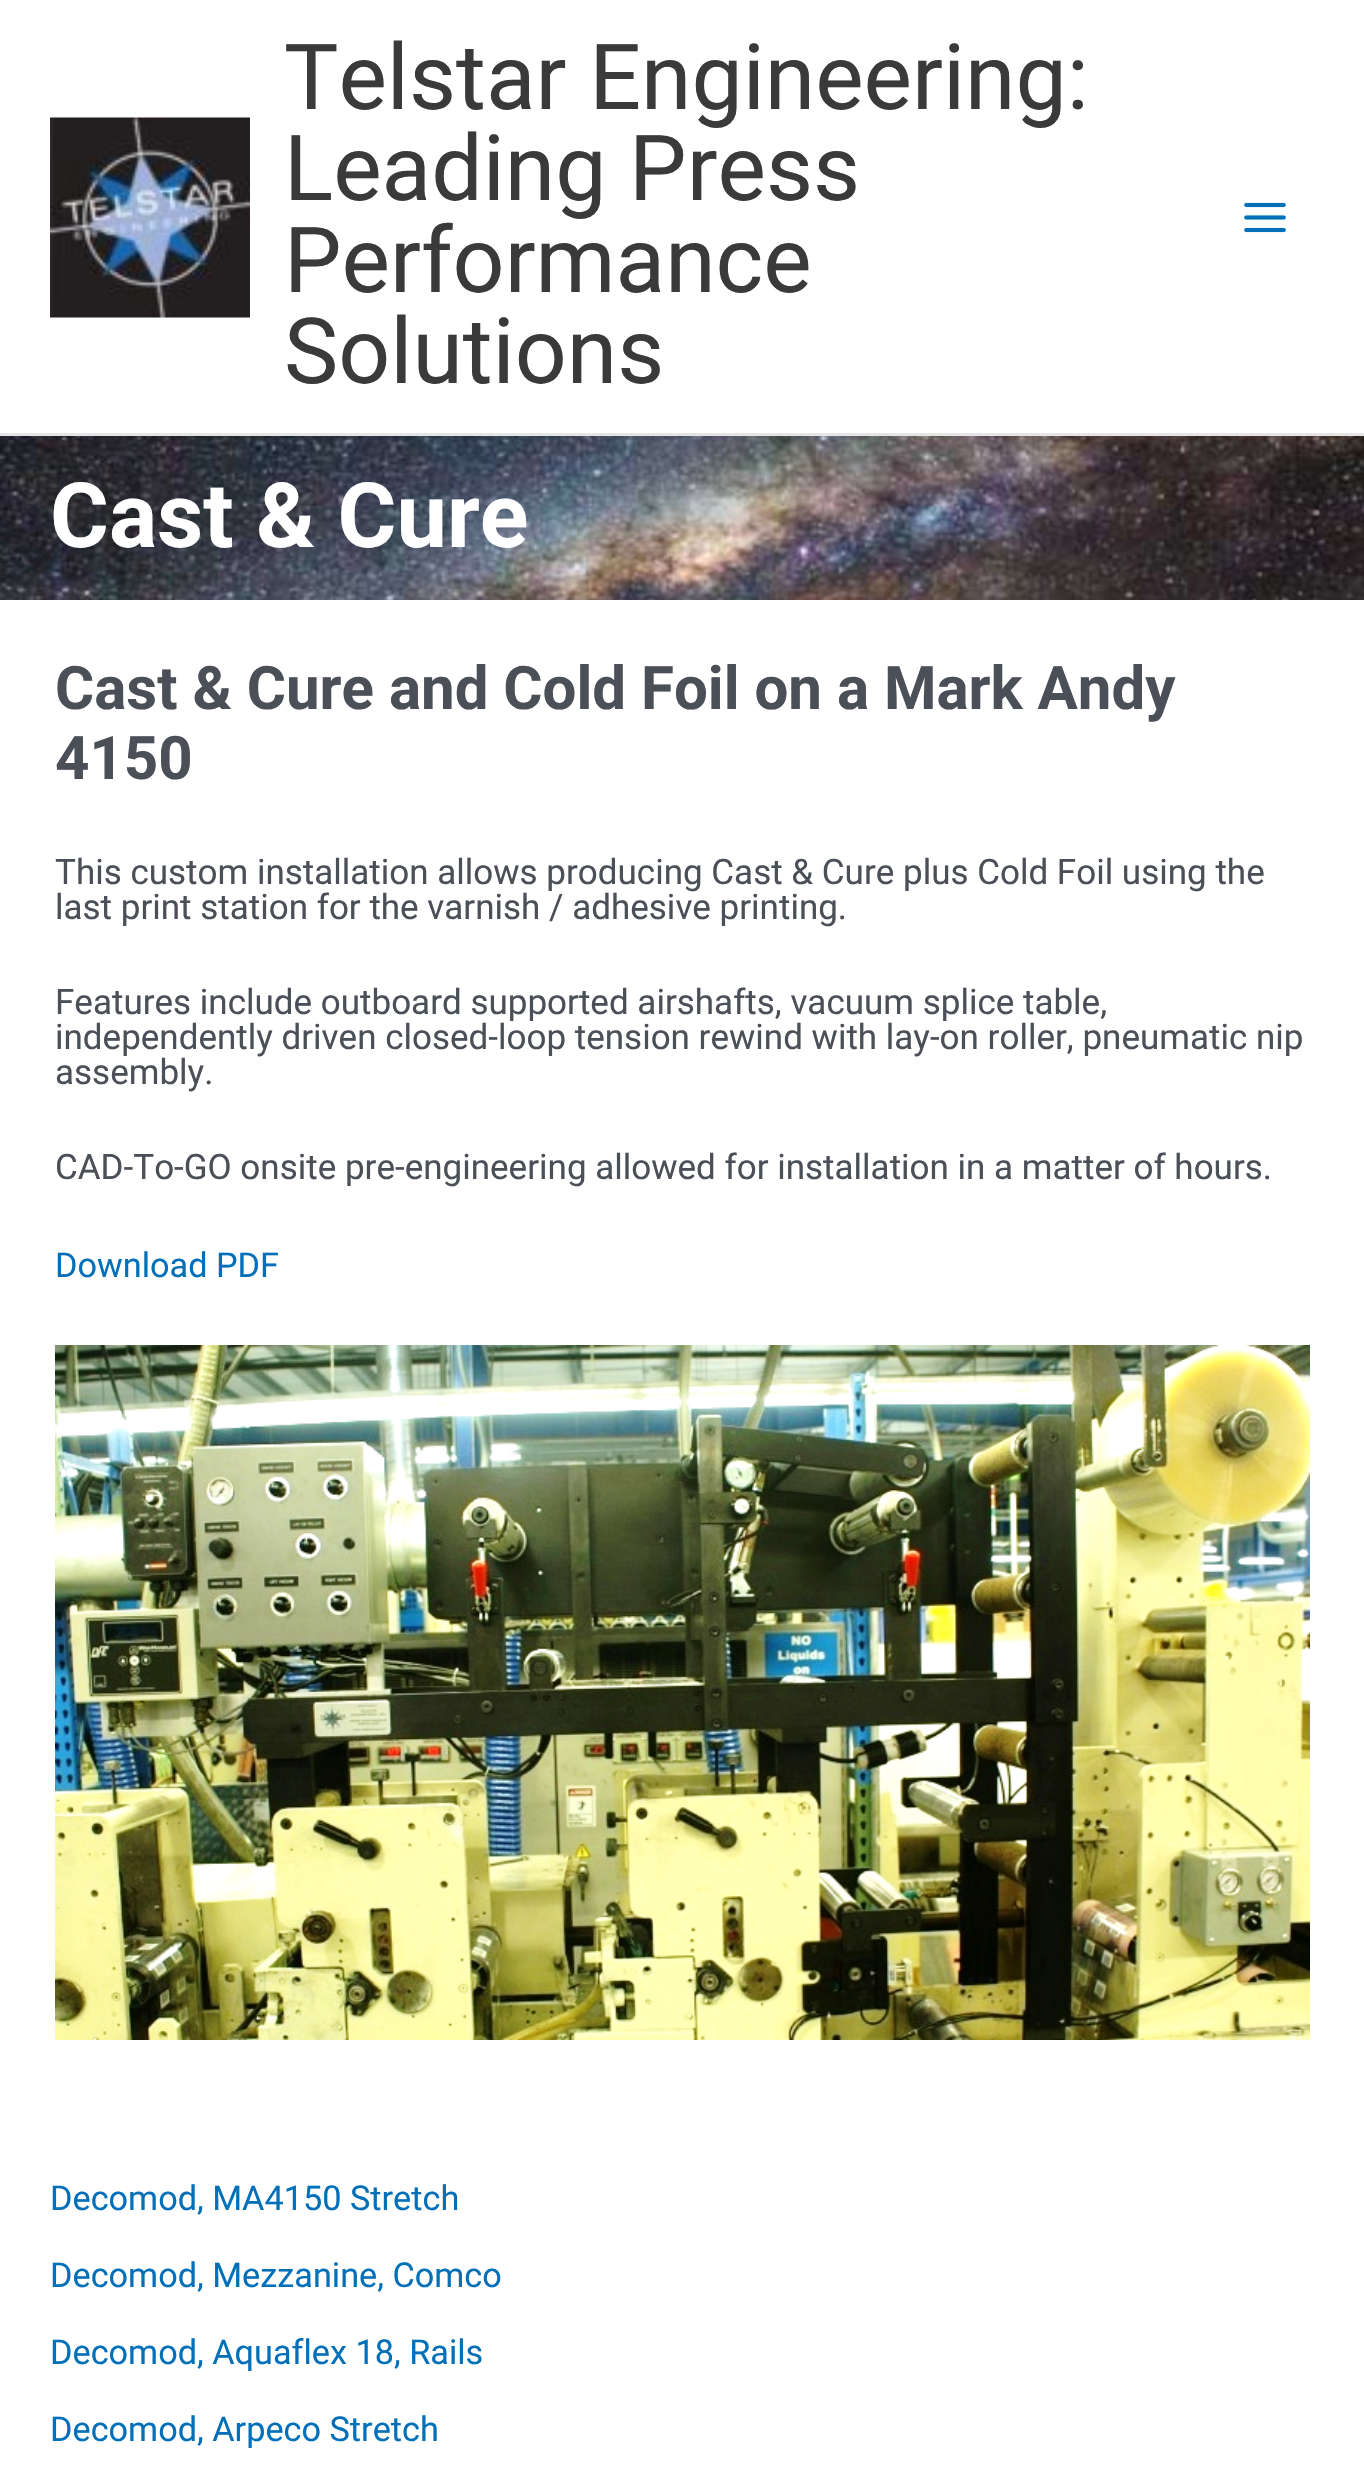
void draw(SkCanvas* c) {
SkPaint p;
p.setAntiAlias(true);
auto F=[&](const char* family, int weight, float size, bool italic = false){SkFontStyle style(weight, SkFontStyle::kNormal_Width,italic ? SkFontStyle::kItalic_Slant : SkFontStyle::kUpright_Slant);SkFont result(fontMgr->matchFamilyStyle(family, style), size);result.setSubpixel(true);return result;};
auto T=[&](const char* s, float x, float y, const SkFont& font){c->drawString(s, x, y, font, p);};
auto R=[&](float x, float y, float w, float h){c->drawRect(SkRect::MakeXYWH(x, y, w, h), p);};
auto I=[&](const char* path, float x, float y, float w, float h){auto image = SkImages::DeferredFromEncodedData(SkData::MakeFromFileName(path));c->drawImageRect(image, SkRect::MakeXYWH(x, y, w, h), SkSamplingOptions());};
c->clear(0xffffffff);
p.setColor(0xffe5e5e5);
R(0,433,1364,3);
I("1.png",50,117,200,201);
auto f1 = F("Roboto",400,91.25);
p.setColor(0xff3a3a3a);
T("Telstar Engineering:",284,109,f1);
T("Leading Press",284,200,f1);
T("Performance",284,292,f1);
T("Solutions",284,383,f1);
I("2.png",1244,202,42,31);
I("3.png",0,436,1364,164);
auto f2 = F("Roboto",700,90);
p.setColor(0xffffffff);
T("Cast & Cure",50,547,f2);
auto f3 = F("Roboto",700,60);
p.setColor(0xff4b4f58);
T("Cast & Cure and Cold Foil on a Mark Andy",55,709,f3);
T("4150",55,779,f3);
auto f4 = F("Roboto",400,35);
T("This custom installation allows producing Cast & Cure plus Cold Foil using the",55,884,f4);
T("last print station for the varnish / adhesive printing.",55,919,f4);
T("Features include outboard supported airshafts, vacuum splice table,",55,1014,f4);
T("independently driven closed-loop tension rewind with lay-on roller, pneumatic nip",55,1049,f4);
T("assembly.",55,1084,f4);
T("CAD-To-GO onsite pre-engineering allowed for installation in a matter of hours.",55,1179,f4);
auto f5 = F("Roboto",400,34.25);
p.setColor(0xff0170b9);
T("Download PDF",55,1277,f5);
I("4.png",55,1345,1255,695);
T("Decomod, MA4150 Stretch",50,2210,f5);
T("Decomod, Mezzanine, Comco",50,2287,f5);
T("Decomod, Aquaflex 18, Rails",50,2364,f5);
T("Decomod, Arpeco Stretch",50,2441,f5);
}
